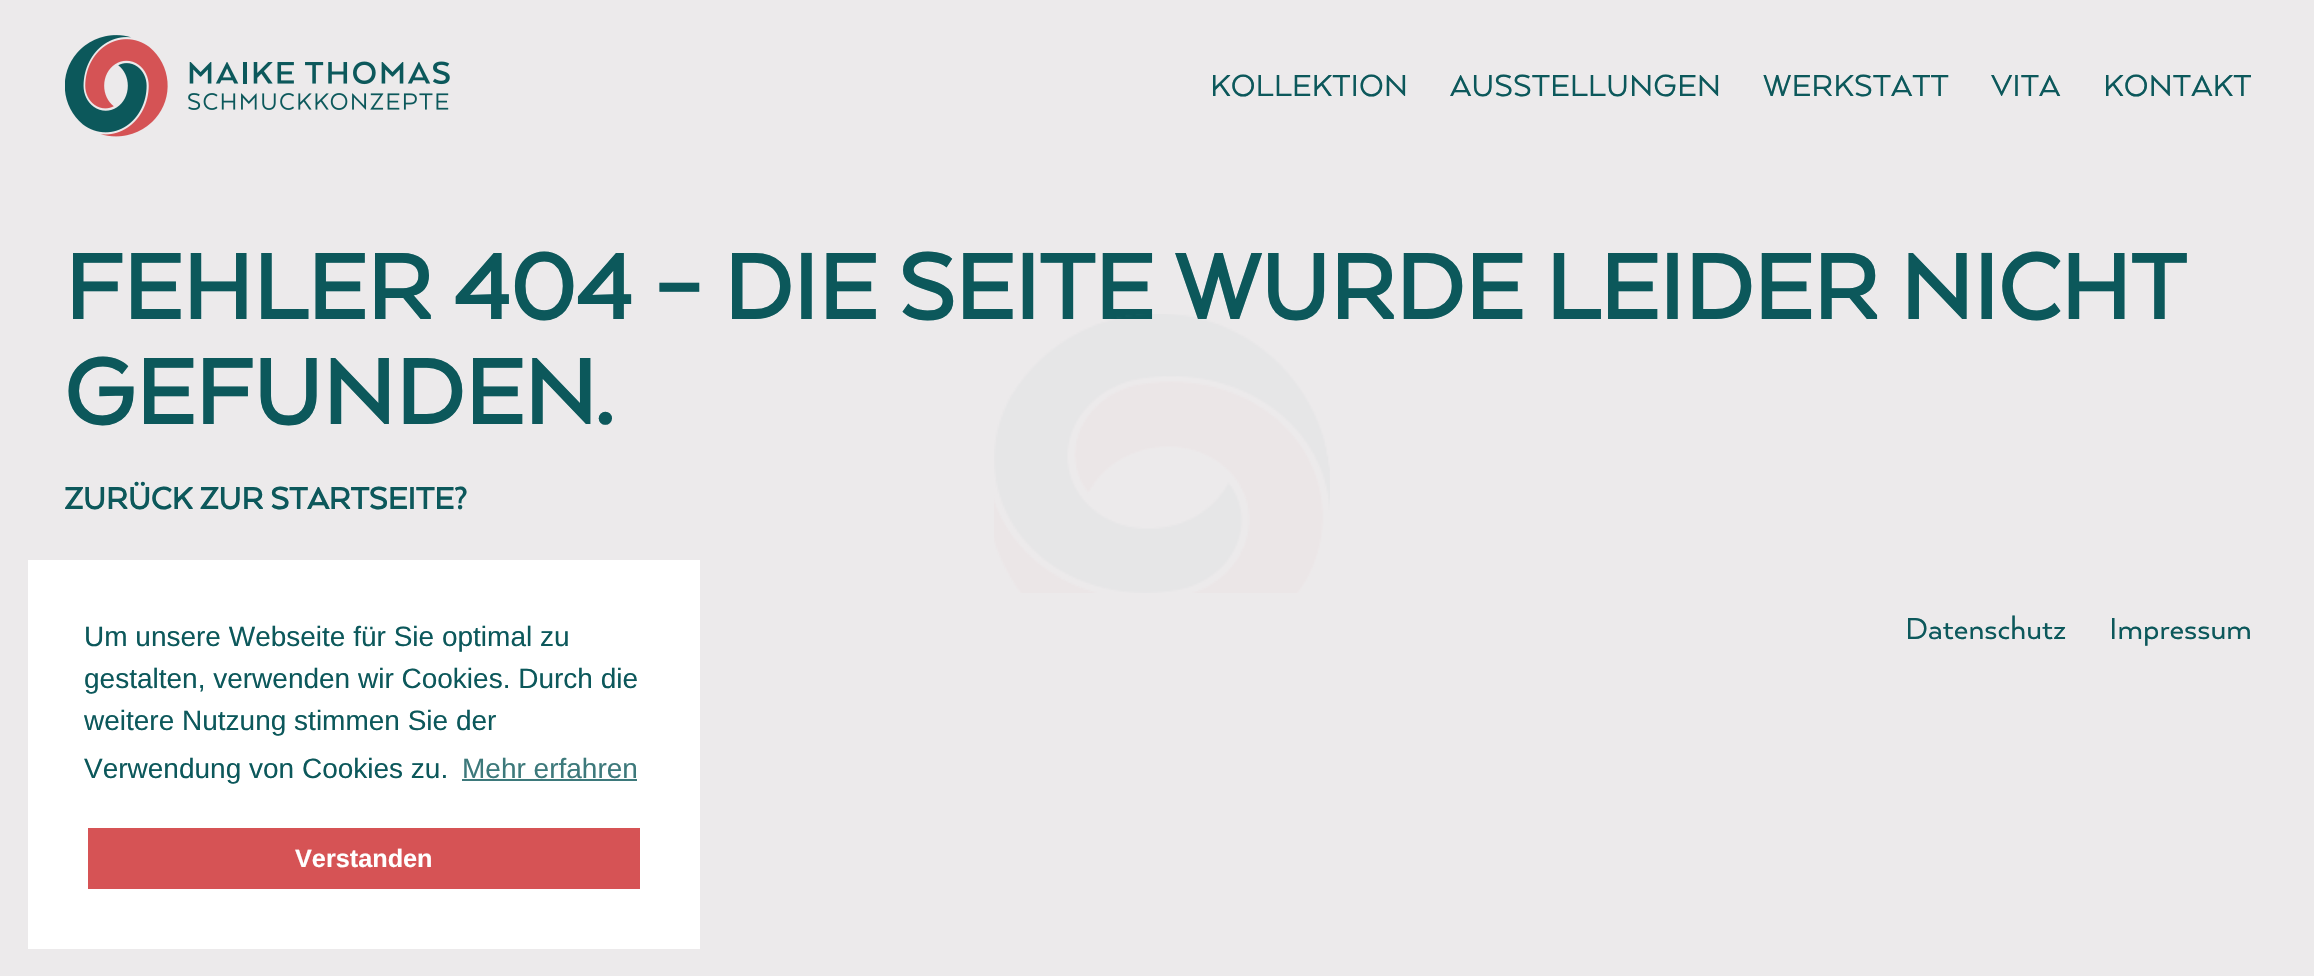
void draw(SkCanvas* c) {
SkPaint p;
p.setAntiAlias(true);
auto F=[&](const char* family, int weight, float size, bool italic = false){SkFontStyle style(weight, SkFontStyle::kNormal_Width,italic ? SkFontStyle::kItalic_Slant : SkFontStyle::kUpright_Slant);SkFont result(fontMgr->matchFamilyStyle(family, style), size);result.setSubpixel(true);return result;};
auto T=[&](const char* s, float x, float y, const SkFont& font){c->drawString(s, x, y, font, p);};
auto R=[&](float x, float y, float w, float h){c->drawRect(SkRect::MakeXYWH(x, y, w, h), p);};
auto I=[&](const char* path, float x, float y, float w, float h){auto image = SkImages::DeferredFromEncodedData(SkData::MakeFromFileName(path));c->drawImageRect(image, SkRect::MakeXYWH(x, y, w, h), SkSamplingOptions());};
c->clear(0xffeceaeb);
I("1.png",65,35,385,102);
auto f1 = F("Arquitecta",400,35);
p.setColor(0xff0c585b);
T("KOLLEKTION",1210,96,f1);
T("AUSSTELLUNGEN",1450,96,f1);
T("WERKSTATT",1763,96,f1);
T("VITA",1991,96,f1);
T("KONTAKT",2103,96,f1);
auto f2 = F("Arquitecta",700,105);
T("FEHLER 404 – DIE SEITE WURDE LEIDER NICHT",64,319,f2);
T("GEFUNDEN.",64,424,f2);
auto f3 = F("Arquitecta",700,35);
T("ZURÜCK ZUR STARTSEITE?",64,509,f3);
T("Datenschutz",1905,639,f1);
T("Impressum",2109,639,f1);
I("2.png",994,314,336,279);
p.setColor(0xffffffff);
R(28,560,672,389);
auto f4 = F("Liberation Sans",400,28);
p.setColor(0xff0c585b);
T("Um unsere Webseite für Sie optimal zu",84,646,f4);
T("gestalten, verwenden wir Cookies. Durch die",84,688,f4);
T("weitere Nutzung stimmen Sie der",84,730,f4);
T("Verwendung von Cookies zu.",84,778,f4);
p.setColor(0xff3d797b);
T("Mehr erfahren",462,778,f4);
R(462,779,175,2);
p.setColor(0xffd65355);
R(88,828,552,61);
auto f5 = F("Liberation Sans",700,25.25);
p.setColor(0xffffffff);
T("Verstanden",295,867,f5);
}
